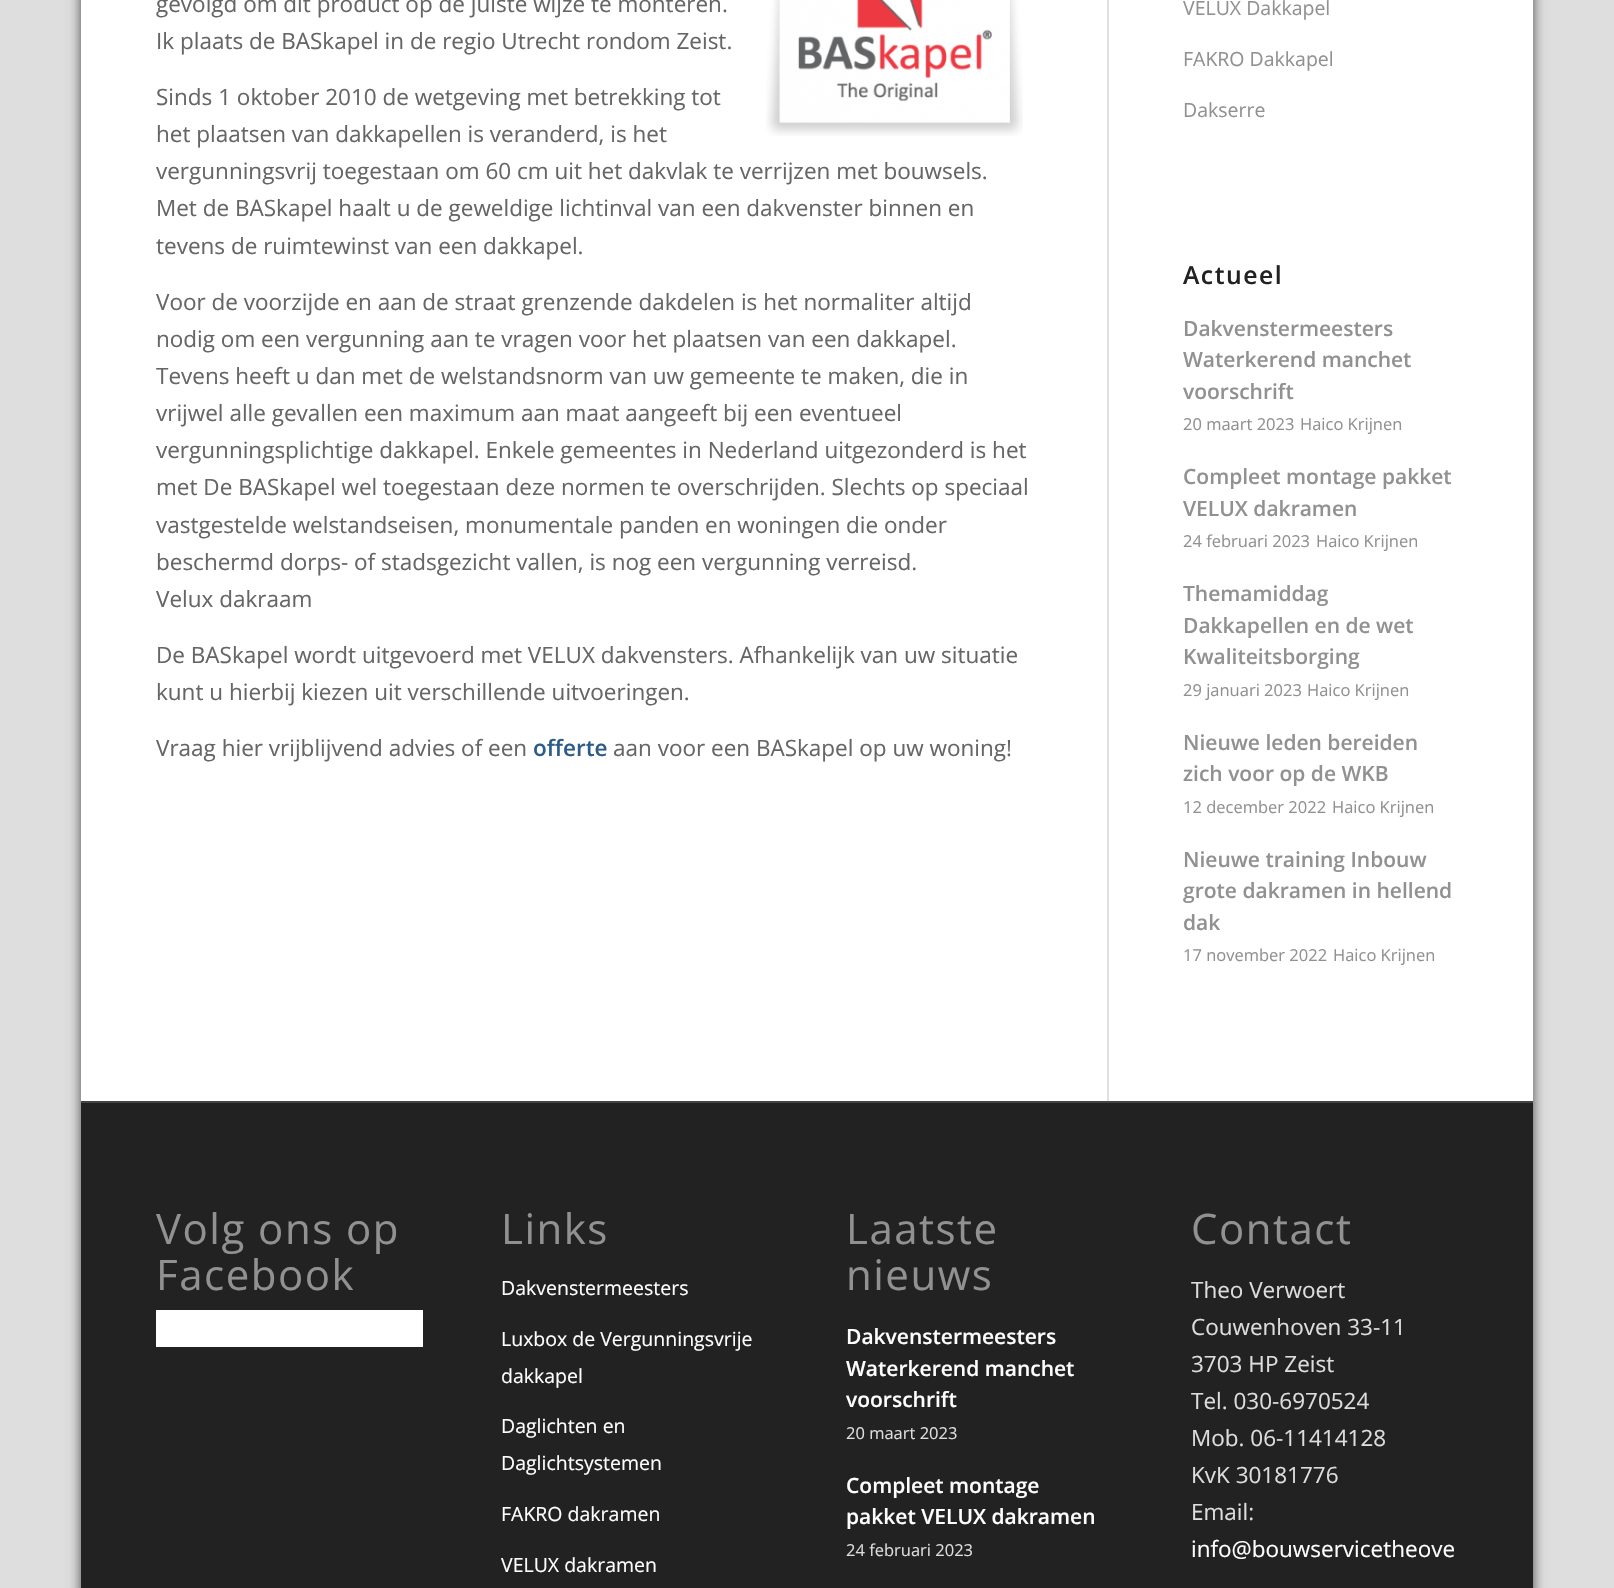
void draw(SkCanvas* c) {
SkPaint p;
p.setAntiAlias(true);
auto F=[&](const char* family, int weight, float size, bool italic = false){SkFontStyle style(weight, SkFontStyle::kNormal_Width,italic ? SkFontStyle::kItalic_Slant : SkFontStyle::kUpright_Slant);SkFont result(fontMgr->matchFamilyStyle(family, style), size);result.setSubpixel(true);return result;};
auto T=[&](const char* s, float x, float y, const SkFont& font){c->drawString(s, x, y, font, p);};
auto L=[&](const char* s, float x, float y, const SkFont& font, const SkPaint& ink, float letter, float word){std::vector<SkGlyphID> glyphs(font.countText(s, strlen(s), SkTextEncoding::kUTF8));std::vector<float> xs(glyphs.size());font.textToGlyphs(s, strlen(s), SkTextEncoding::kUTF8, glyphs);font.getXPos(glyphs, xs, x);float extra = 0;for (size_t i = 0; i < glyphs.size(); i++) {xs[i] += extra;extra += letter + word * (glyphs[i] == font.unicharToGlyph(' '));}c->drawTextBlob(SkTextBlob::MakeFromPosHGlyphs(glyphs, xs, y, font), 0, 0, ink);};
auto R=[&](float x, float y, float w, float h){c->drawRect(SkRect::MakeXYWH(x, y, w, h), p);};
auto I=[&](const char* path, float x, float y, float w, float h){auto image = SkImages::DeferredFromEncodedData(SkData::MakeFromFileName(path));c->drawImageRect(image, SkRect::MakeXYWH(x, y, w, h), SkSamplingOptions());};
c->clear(0xffdedede);
p.setColor(0xff494949);
p.setMaskFilter(SkMaskFilter::MakeBlur(kNormal_SkBlurStyle, 6));
c->drawRect(SkRect::MakeXYWH(81,-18,1452,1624),p);
p.setMaskFilter(nullptr);
p.setColor(0xffffffff);
R(81,0,1452,1101);
auto f1 = F("Open Sans",400,22.5);
p.setColor(0xff666666);
T("gevolgd om dit product op de juiste wijze te monteren.",156,12,f1);
I("1.png",766,0,257,136);
T("Ik plaats de BASkapel in de regio Utrecht rondom Zeist.",156,49,f1);
T("Sinds 1 oktober 2010 de wetgeving met betrekking tot",156,105,f1);
T("het plaatsen van dakkapellen is veranderd, is het",156,142,f1);
T("vergunningsvrij toegestaan om 60 cm uit het dakvlak te verrijzen met bouwsels.",156,179,f1);
T("Met de BASkapel haalt u de geweldige lichtinval van een dakvenster binnen en",156,216,f1);
T("tevens de ruimtewinst van een dakkapel.",156,254,f1);
T("Voor de voorzijde en aan de straat grenzende dakdelen is het normaliter altijd",156,310,f1);
T("nodig om een vergunning aan te vragen voor het plaatsen van een dakkapel.",156,347,f1);
T("Tevens heeft u dan met de welstandsnorm van uw gemeente te maken, die in",156,384,f1);
T("vrijwel alle gevallen een maximum aan maat aangeeft bij een eventueel",156,421,f1);
T("vergunningsplichtige dakkapel. Enkele gemeentes in Nederland uitgezonderd is het",156,458,f1);
T("met De BASkapel wel toegestaan deze normen te overschrijden. Slechts op speciaal",156,495,f1);
T("vastgestelde welstandseisen, monumentale panden en woningen die onder",156,533,f1);
T("beschermd dorps- of stadsgezicht vallen, is nog een vergunning verreisd.",156,570,f1);
T("Velux dakraam",156,607,f1);
T("De BASkapel wordt uitgevoerd met VELUX dakvensters. Afhankelijk van uw situatie",156,663,f1);
T("kunt u hierbij kiezen uit verschillende uitvoeringen.",156,700,f1);
T("Vraag hier vrijblijvend advies of een",156,756,f1);
auto f2 = F("Open Sans",600,22.5);
p.setColor(0xff2d5c88);
T("offerte",533,756,f2);
p.setColor(0xff666666);
T("aan voor een BASkapel op uw woning!",613,756,f1);
p.setColor(0xffe1e1e1);
R(1107,0,2,1101);
auto f3 = F("Open Sans",400,19.5);
p.setColor(0xff919191);
T("VELUX Dakkapel",1183,15,f3);
T("FAKRO Dakkapel",1183,66,f3);
T("Dakserre",1183,117,f3);
auto f4 = F("Open Sans",600,24.75);
p.setColor(0xff222222);
L("Actueel",1183,284,f4,p,1.5,0);
auto f5 = F("Open Sans",600,21);
p.setColor(0xff919191);
T("Dakvenstermeesters",1183,336,f5);
T("Waterkerend manchet",1183,367,f5);
T("voorschrift",1183,399,f5);
auto f6 = F("Open Sans",400,16.5);
T("20 maart 2023",1183,430,f6);
T("Haico Krijnen",1300,430,f6);
T("Compleet montage pakket",1183,484,f5);
T("VELUX dakramen",1183,516,f5);
T("24 februari 2023",1183,547,f6);
T("Haico Krijnen",1316,547,f6);
T("Themamiddag",1183,601,f5);
T("Dakkapellen en de wet",1183,633,f5);
T("Kwaliteitsborging",1183,664,f5);
T("29 januari 2023",1183,696,f6);
T("Haico Krijnen",1307,696,f6);
T("Nieuwe leden bereiden",1183,750,f5);
T("zich voor op de WKB",1183,781,f5);
T("12 december 2022",1183,813,f6);
T("Haico Krijnen",1332,813,f6);
T("Nieuwe training Inbouw",1183,867,f5);
T("grote dakramen in hellend",1183,898,f5);
T("dak",1183,930,f5);
T("17 november 2022",1183,961,f6);
T("Haico Krijnen",1333,961,f6);
p.setColor(0xff222222);
R(81,1103,1452,485);
p.setColor(0xff444444);
R(81,1101,1452,2);
auto f7 = F("Open Sans",400,42);
p.setColor(0xff919191);
L("Volg ons op",156,1244,f7,p,1.5,0);
L("Facebook",156,1290,f7,p,1.5,0);
p.setColor(0xffffffff);
R(156,1310,267,37);
p.setColor(0xff919191);
L("Links",501,1244,f7,p,1.5,0);
p.setColor(0xffffffff);
T("Dakvenstermeesters",501,1295,f3);
T("Luxbox de Vergunningsvrije",501,1346,f3);
T("dakkapel",501,1383,f3);
T("Daglichten en",501,1433,f3);
T("Daglichtsystemen",501,1470,f3);
T("FAKRO dakramen",501,1521,f3);
T("VELUX dakramen",501,1572,f3);
p.setColor(0xff919191);
L("Laatste",846,1244,f7,p,1.5,0);
L("nieuws",846,1290,f7,p,1.5,0);
p.setColor(0xffffffff);
T("Dakvenstermeesters",846,1344,f5);
T("Waterkerend manchet",846,1376,f5);
T("voorschrift",846,1407,f5);
p.setColor(0xffdddddd);
T("20 maart 2023",846,1439,f6);
p.setColor(0xffffffff);
T("Compleet montage",846,1493,f5);
T("pakket VELUX dakramen",846,1524,f5);
p.setColor(0xffdddddd);
T("24 februari 2023",846,1556,f6);
p.setColor(0xff919191);
L("Contact",1191,1244,f7,p,1.5,0);
p.setColor(0xffdddddd);
T("Theo Verwoert",1191,1298,f1);
T("Couwenhoven 33-11",1191,1335,f1);
T("3703 HP Zeist",1191,1372,f1);
T("Tel. 030-6970524",1191,1409,f1);
T("Mob. 06-11414128",1191,1446,f1);
T("KvK 30181776",1191,1483,f1);
T("Email:",1191,1520,f1);
p.setColor(0xffffffff);
T("info@bouwservicetheove",1191,1557,f1);
}
